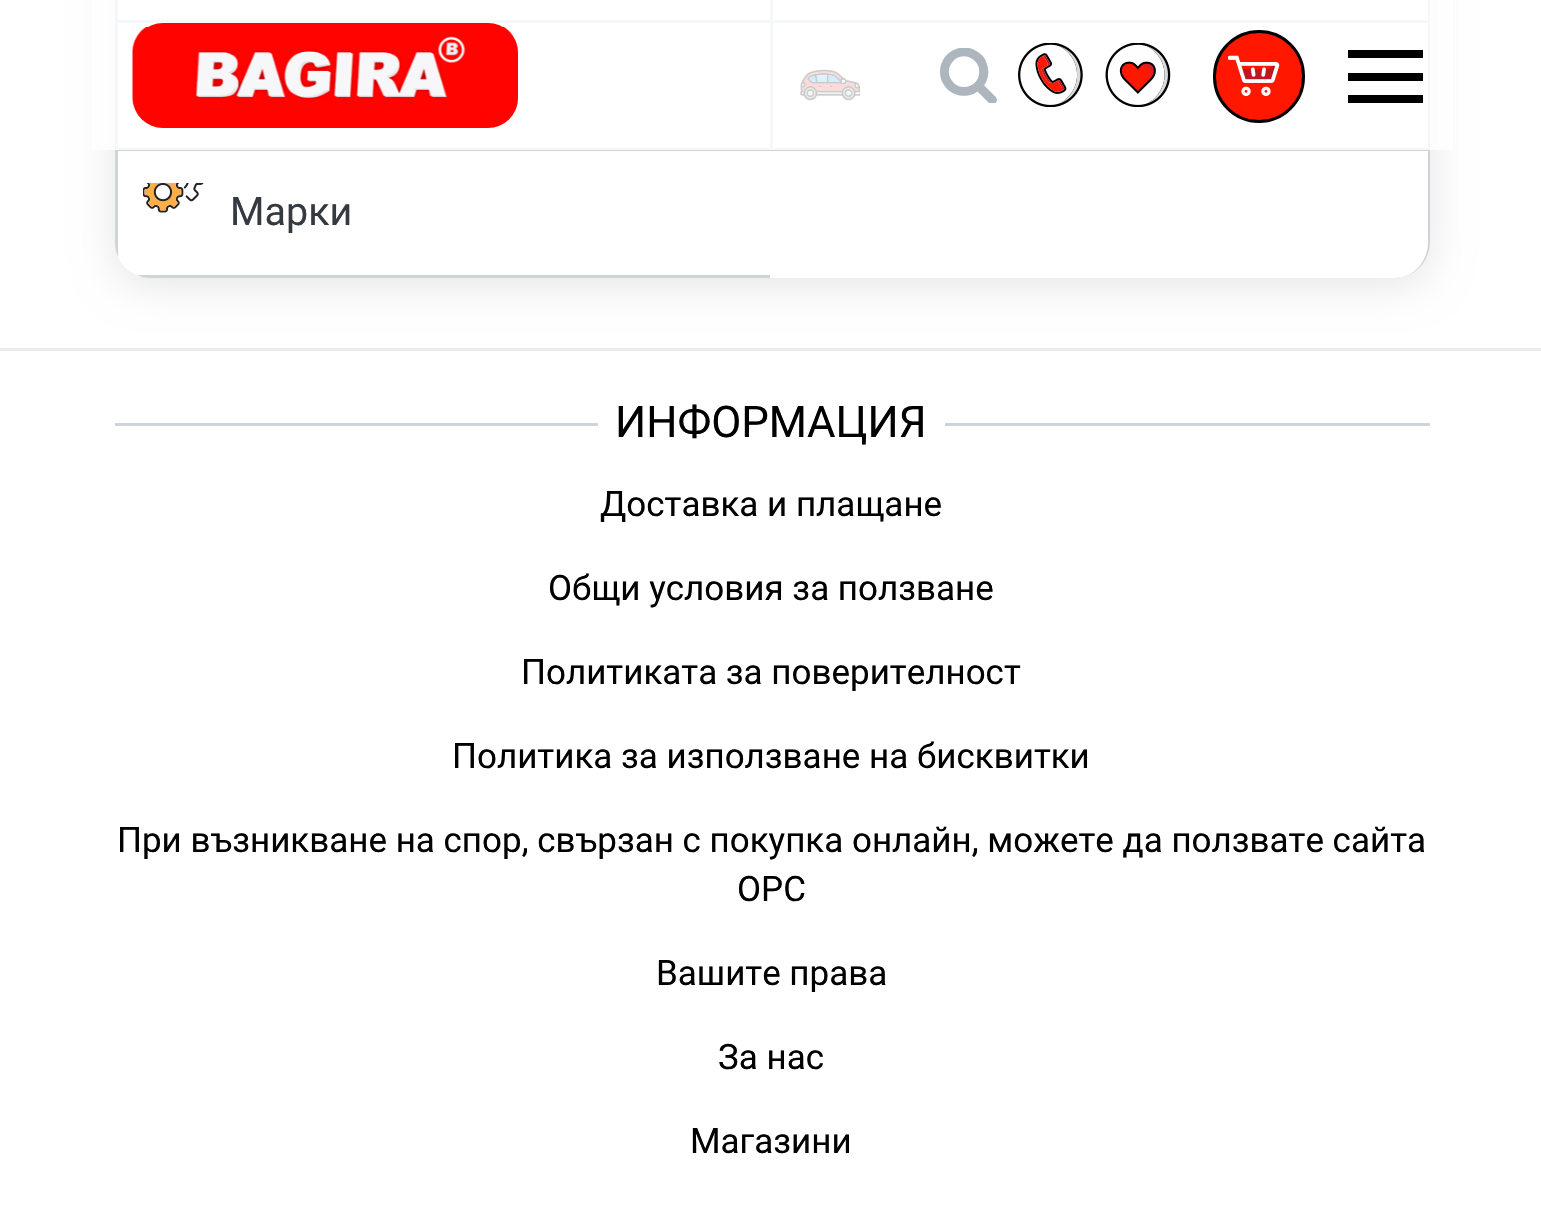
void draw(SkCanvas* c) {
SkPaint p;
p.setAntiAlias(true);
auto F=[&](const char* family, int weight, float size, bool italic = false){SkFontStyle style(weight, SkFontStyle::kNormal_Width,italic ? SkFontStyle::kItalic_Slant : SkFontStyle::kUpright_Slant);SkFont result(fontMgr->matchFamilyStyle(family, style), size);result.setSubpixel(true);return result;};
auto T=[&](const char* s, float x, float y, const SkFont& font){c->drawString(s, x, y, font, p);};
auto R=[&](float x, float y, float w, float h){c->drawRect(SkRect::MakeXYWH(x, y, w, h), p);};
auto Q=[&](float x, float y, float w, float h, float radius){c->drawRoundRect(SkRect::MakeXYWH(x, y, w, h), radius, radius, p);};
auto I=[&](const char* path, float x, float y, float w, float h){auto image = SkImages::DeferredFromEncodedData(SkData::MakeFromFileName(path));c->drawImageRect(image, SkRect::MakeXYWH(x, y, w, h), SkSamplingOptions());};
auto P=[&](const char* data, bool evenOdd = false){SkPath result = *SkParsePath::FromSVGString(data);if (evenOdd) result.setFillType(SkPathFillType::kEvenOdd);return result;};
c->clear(0xffffffff);
p.setColor(0x1a000000);
p.setMaskFilter(SkMaskFilter::MakeBlur(kNormal_SkBlurStyle, 20));
c->drawRoundRect(SkRect::MakeXYWH(115,-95,1315,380),35,35,p);
p.setMaskFilter(nullptr);
p.setColor(0xffffffff);
Q(115,-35,1315,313,35);
p.setColor(0xffced4da);
c->drawPath(P("M150-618h1245c19 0 35 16 35 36v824c0 20-16 36-35 36h-1245c-19 0-35-16-35-36v-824c0-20 16-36 35-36zm0 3h1245c18 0 33 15 33 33v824c0 20-15 36-33 36h-1245c-19 0-35-16-35-36v-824c0-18 16-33 35-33z",true),p);
R(115,20,1313,3);
R(115,0,3,23);
R(770,0,3,23);
R(115,148,1313,3);
R(115,23,3,127);
R(770,23,3,127);
I("6.png",800,69,60,32);
p.setColor(0xccffffff);
R(92,0,1361,150);
p.setColor(0xffff0300);
Q(133,23,385,105,30);
I("1.png",132,27,386,95);
I("2.png",940,48,57,55);
I("3.png",1018,43,65,64);
I("4.png",1105,43,66,64);
p.setColor(0xffff1700);
c->drawRoundRect(SkRect::MakeXYWH(1214.5,31.5,89,90),44.5,44.5,p);
p.setStroke(true);
p.setStrokeWidth(3);
p.setColor(0xff000000);
c->drawRoundRect(SkRect::MakeXYWH(1214.5,31.5,89,90),44.5,44.5,p);
I("5.png",1228,55,52,41);
p.setStroke(false);
R(1348,73,75,8);
R(1348,50,75,8);
R(1348,95,75,8);
p.setColor(0xffced4da);
c->drawPath(P("M770 278h-620c-5 0-9-1-13-3h633z"),p);
c->drawPath(P("M115 150v92c0 6 1 10 3 15v-107z"),p);
I("7.png",143,183,61,30);
auto f1 = F("Roboto",400,39.5);
p.setColor(0xff343a40);
T("Марки",230,225,f1);
p.setColor(0xffe9ecef);
R(0,348,1541,3);
p.setColor(0xffced4da);
R(115,423,483,3);
auto f2 = F("Roboto",400,43.75);
p.setColor(0xff000000);
T("ИНФОРМАЦИЯ",615,437,f2);
p.setColor(0xffced4da);
R(945,423,485,3);
auto f3 = F("Roboto",400,35);
p.setColor(0xff000000);
T("Доставка и плащане",600,516,f3);
T("Общи условия за ползване",548,600,f3);
T("Политиката за поверителност",521,684,f3);
T("Политика за използване на бисквитки",452,768,f3);
T("При възникване на спор, свързан с покупка онлайн, можете да ползвате сайта",117,852,f3);
T("ОРС",737,901,f3);
T("Вашите права",656,985,f3);
T("За нас",718,1069,f3);
T("Магазини",690,1153,f3);
}
